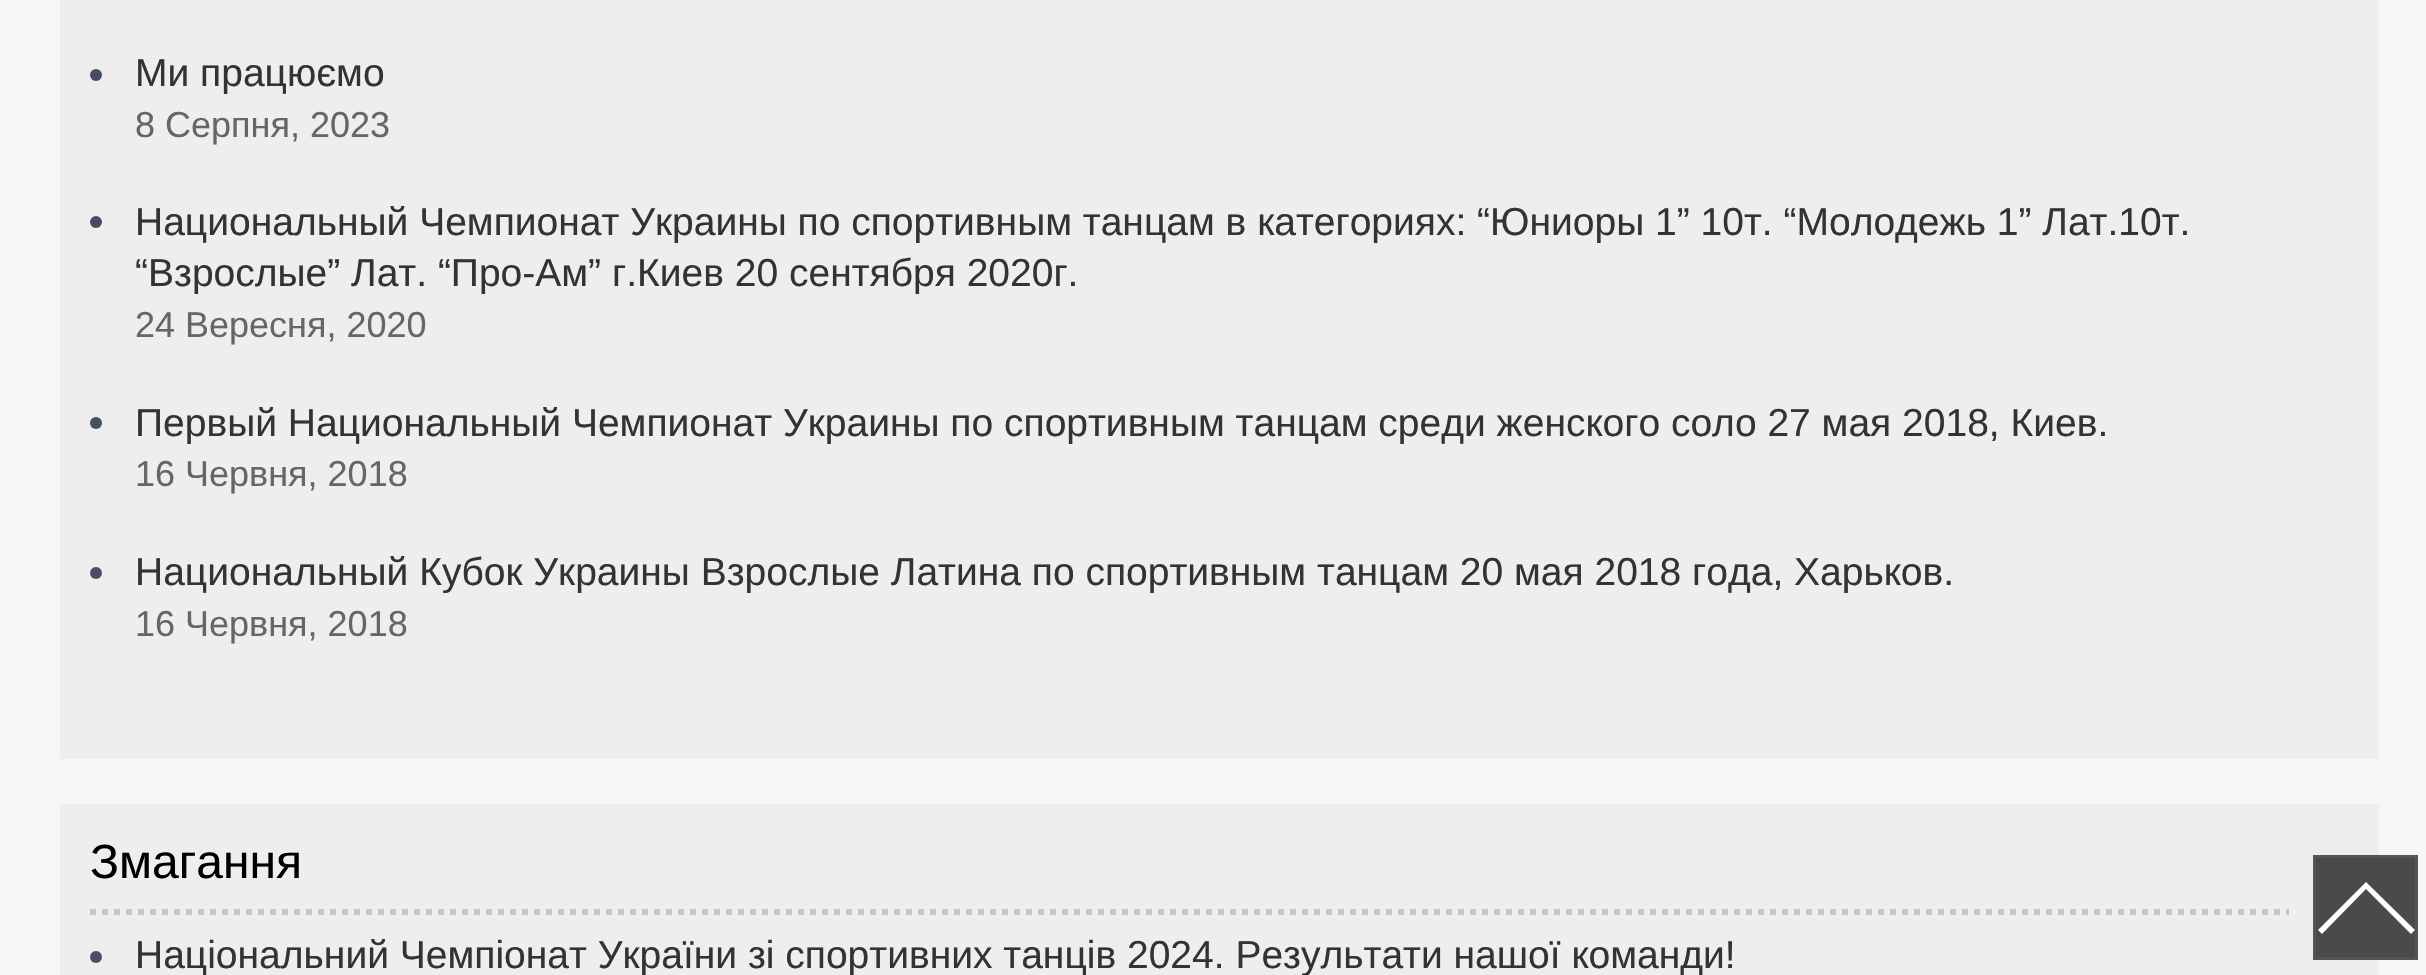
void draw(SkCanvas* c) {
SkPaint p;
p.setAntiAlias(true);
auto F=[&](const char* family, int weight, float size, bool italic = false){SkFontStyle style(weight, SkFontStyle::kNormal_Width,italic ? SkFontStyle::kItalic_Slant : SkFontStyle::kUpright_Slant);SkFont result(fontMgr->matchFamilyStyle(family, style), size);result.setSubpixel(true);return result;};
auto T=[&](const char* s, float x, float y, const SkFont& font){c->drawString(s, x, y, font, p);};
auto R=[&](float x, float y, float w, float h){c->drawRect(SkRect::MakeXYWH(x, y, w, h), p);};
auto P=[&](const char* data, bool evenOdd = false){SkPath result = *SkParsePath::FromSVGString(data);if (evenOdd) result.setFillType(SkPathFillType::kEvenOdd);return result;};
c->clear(0xfff6f6f6);
p.setColor(0xffeeeeee);
R(60,0,2319,759);
p.setColor(0xff464e62);
c->drawCircle(96,75,6,p);
auto f1 = F("Liberation Sans",400,39);
p.setColor(0xff333333);
T("Ми працюємо",135,86,f1);
auto f2 = F("Liberation Sans",400,36);
p.setColor(0xff666666);
T("8 Серпня, 2023",135,137,f2);
p.setColor(0xff464e62);
c->drawCircle(96,222,6,p);
p.setColor(0xff333333);
T("Национальный Чемпионат Украины по спортивным танцам в категориях: “Юниоры 1” 10т. “Молодежь 1” Лат.10т.",135,235,f1);
T("“Взрослые” Лат. “Про-Ам” г.Киев 20 сентября 2020г.",135,286,f1);
p.setColor(0xff666666);
T("24 Вересня, 2020",135,337,f2);
p.setColor(0xff464e62);
c->drawCircle(96,423,6,p);
p.setColor(0xff333333);
T("Первый Национальный Чемпионат Украины по спортивным танцам среди женского соло 27 мая 2018, Киев.",135,436,f1);
p.setColor(0xff666666);
T("16 Червня, 2018",135,486,f2);
p.setColor(0xff464e62);
c->drawCircle(96,573,6,p);
p.setColor(0xff333333);
T("Национальный Кубок Украины Взрослые Латина по спортивным танцам 20 мая 2018 года, Харьков.",135,585,f1);
p.setColor(0xff666666);
T("16 Червня, 2018",135,636,f2);
p.setColor(0xffeeeeee);
R(60,804,2319,171);
p.setStroke(true);
p.setStrokeWidth(6);
p.setColor(0xffc5c7ca);
p.setPathEffect(SkDashPathEffect::Make({{6,6}}, 0));
c->drawPath(P("M90 912h2199"),p);
p.setPathEffect(nullptr);
auto f3 = F("Liberation Sans",400,48);
p.setStroke(false);
p.setColor(0xff000000);
T("Змагання",90,878,f3);
p.setColor(0xff464e62);
c->drawCircle(96,957,6,p);
p.setColor(0xff333333);
T("Національний Чемпіонат України зі спортивних танців 2024. Результати нашої команди!",135,968,f1);
p.setColor(0xff555555);
R(2313,855,105,105);
p.setColor(0xff4b4a4a);
R(2316,858,99,99);
p.setColor(0xffffffff);
c->drawPath(P("M2318 930l4 4l44-45l45 45l4-4l-49-48z"),p);
}
